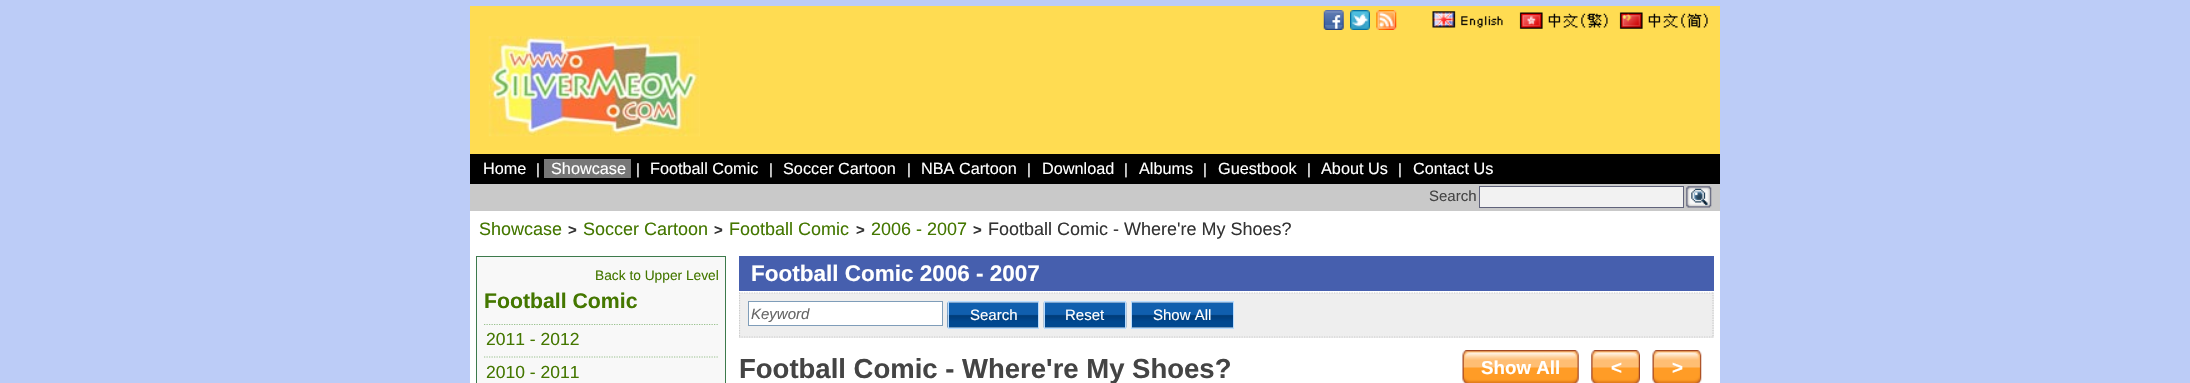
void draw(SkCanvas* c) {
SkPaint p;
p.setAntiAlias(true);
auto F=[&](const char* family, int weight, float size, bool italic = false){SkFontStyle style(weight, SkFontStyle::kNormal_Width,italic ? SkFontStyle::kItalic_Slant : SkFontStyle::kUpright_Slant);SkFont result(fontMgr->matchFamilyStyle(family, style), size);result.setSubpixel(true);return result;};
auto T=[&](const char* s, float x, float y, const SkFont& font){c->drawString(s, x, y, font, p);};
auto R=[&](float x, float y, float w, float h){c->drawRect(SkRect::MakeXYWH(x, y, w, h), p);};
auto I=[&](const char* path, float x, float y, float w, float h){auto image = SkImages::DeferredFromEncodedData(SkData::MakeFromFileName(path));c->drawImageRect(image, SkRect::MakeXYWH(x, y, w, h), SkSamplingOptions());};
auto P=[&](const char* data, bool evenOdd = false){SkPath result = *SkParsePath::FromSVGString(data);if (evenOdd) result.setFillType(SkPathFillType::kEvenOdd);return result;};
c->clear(0xffbcccf7);
p.setColor(0xffffdc52);
R(470,6,1250,148);
I("1.png",1323,10,21,20);
I("2.png",1350,10,20,20);
I("3.png",1376,10,21,20);
I("4.png",1432,11,71,17);
I("5.png",1519,12,89,17);
I("6.png",1619,12,89,17);
I("7.png",488,36,212,101);
p.setColor(0xff000000);
R(470,154,1250,30);
auto f1 = F("Liberation Sans",400,16.25);
p.setColor(0xffffffff);
T("Home",483,174,f1);
auto f2 = F("Liberation Sans",400,15);
T("|",536,174,f2);
p.setColor(0xff777777);
R(544,159,87,19);
p.setColor(0xffffffff);
T("Showcase",551,174,f1);
T("|",636,174,f2);
T("Football Comic",650,174,f1);
T("|",769,174,f2);
T("Soccer Cartoon",783,174,f1);
T("|",907,174,f2);
T("NBA Cartoon",921,174,f1);
T("|",1027,174,f2);
T("Download",1042,174,f1);
T("|",1124,174,f2);
T("Albums",1139,174,f1);
T("|",1203,174,f2);
T("Guestbook",1218,174,f1);
T("|",1307,174,f2);
T("About Us",1321,174,f1);
T("|",1398,174,f2);
T("Contact Us",1413,174,f1);
p.setColor(0xffc9c9c9);
R(470,184,1250,27);
p.setColor(0xff444444);
T("Search",1429,201,f2);
p.setColor(0xfff2f2f2);
c->drawRect(SkRect::MakeXYWH(1479.5,186.5,204,21),p);
p.setStroke(true);
p.setStrokeWidth(1);
p.setColor(0xff60637b);
c->drawRect(SkRect::MakeXYWH(1479.5,186.5,204,21),p);
I("8.png",1686,186,26,22);
p.setStroke(false);
p.setColor(0xffffffff);
R(470,211,1250,172);
auto f3 = F("Liberation Sans",400,18);
p.setColor(0xff447700);
T("Showcase",479,235,f3);
auto f4 = F("Liberation Sans",700,15);
p.setColor(0xff333333);
T(">",568,235,f4);
p.setColor(0xff447700);
T("Soccer Cartoon",583,235,f3);
p.setColor(0xff333333);
T(">",714,235,f4);
p.setColor(0xff447700);
T("Football Comic",729,235,f3);
p.setColor(0xff333333);
T(">",856,235,f4);
p.setColor(0xff447700);
T("2006 - 2007",871,235,f3);
p.setColor(0xff333333);
T(">",973,235,f4);
T("Football Comic - Where're My Shoes?",988,235,f3);
p.setColor(0xfff8f8f8);
c->drawRect(SkRect::MakeXYWH(476.5,256.5,249,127),p);
p.setStroke(true);
p.setColor(0xff3d7a4c);
c->drawRect(SkRect::MakeXYWH(476.5,256.5,249,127),p);
auto f5 = F("Liberation Sans",400,13.75);
p.setStroke(false);
p.setColor(0xff447700);
T("Back to Upper Level",595,280,f5);
auto f6 = F("Liberation Sans",700,21.25);
T("Football Comic",484,308,f6);
p.setStroke(true);
p.setStrokeWidth(1.2);
p.setColor(0xff99c28e);
p.setPathEffect(SkDashPathEffect::Make({{1.25f,1.25f}}, 0));
c->drawPath(P("M484 324.5h235"),p);
p.setPathEffect(nullptr);
auto f7 = F("Liberation Sans",400,17.5);
p.setStroke(false);
p.setColor(0xff447700);
T("2011 - 2012",486,345,f7);
p.setStroke(true);
p.setColor(0xff99c28e);
p.setPathEffect(SkDashPathEffect::Make({{1.25f,1.25f}}, 0));
c->drawPath(P("M484 357h235"),p);
p.setPathEffect(nullptr);
p.setStroke(false);
p.setColor(0xff447700);
T("2010 - 2011",486,378,f7);
p.setColor(0xff465fae);
R(739,256,975,35);
auto f8 = F("Liberation Sans",700,22.5);
p.setColor(0xffffffff);
T("Football Comic 2006 - 2007",751,281,f8);
p.setColor(0xffeeeeee);
R(739,293,975,45);
p.setStroke(true);
p.setColor(0xffcccccc);
p.setPathEffect(SkDashPathEffect::Make({{1.25f,1.25f}}, 0));
c->drawPath(P("M739 293h975"),p);
p.setPathEffect(nullptr);
p.setPathEffect(SkDashPathEffect::Make({{1.25f,1.25f}}, 0));
c->drawPath(P("M1713 292.5v45"),p);
p.setPathEffect(nullptr);
p.setPathEffect(SkDashPathEffect::Make({{1.25f,1.25f}}, 0));
c->drawPath(P("M739 337h975"),p);
p.setPathEffect(nullptr);
c->save();
c->clipRect(SkRect::MakeXYWH(739,256,975,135));
p.setPathEffect(SkDashPathEffect::Make({{1.25f,1.25f}}, 0));
c->drawPath(P("M739.5 292.5v45"),p);
p.setPathEffect(nullptr);
c->restore();
p.setStroke(false);
p.setColor(0xffffffff);
c->drawRect(SkRect::MakeXYWH(748.5,301.5,194,24),p);
p.setStroke(true);
p.setStrokeWidth(1);
p.setColor(0xff7f9db9);
c->drawRect(SkRect::MakeXYWH(748.5,301.5,194,24),p);
auto f9 = F("Liberation Sans",400,15,true);
p.setStroke(false);
p.setColor(0xff666666);
T("Keyword",751,319,f9);
I("9.png",947,302,91,26);
p.setStroke(true);
p.setColor(0xffb8dcff);
c->drawRect(SkRect::MakeXYWH(948.5,301.5,90,27),p);
p.setStroke(false);
p.setColor(0xffffffff);
T("Search",970,320,f2);
I("10.png",1043,302,84,26);
p.setStroke(true);
p.setColor(0xffb8dcff);
c->drawRect(SkRect::MakeXYWH(1044.5,301.5,81,27),p);
p.setStroke(false);
p.setColor(0xffffffff);
T("Reset",1065,320,f2);
I("11.png",1132,302,101,26);
p.setStroke(true);
p.setColor(0xffb8dcff);
c->drawRect(SkRect::MakeXYWH(1131.5,301.5,102,27),p);
p.setStroke(false);
p.setColor(0xffffffff);
T("Show All",1153,320,f2);
auto f10 = F("Liberation Sans",700,27.5);
p.setColor(0xff444444);
T("Football Comic - Where're My Shoes?",739,378,f10);
I("12.png",1462,350,38,33);
I("13.png",1500,350,79,33);
auto f11 = F("Liberation Sans",700,18.75);
p.setColor(0xffffffff);
T("Show All",1481,374,f11);
I("14.png",1591,350,37,33);
I("15.png",1628,350,12,33);
T("<",1611,374,f11);
I("16.png",1652,350,38,33);
I("17.png",1690,350,12,33);
T(">",1672,374,f11);
}
